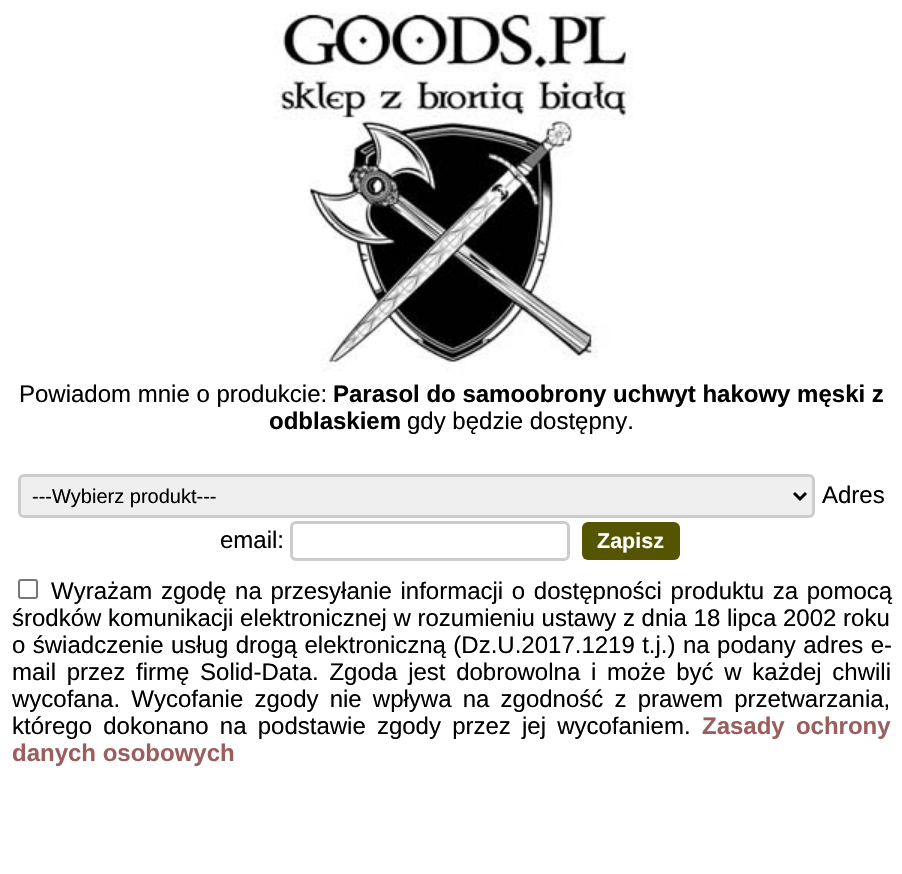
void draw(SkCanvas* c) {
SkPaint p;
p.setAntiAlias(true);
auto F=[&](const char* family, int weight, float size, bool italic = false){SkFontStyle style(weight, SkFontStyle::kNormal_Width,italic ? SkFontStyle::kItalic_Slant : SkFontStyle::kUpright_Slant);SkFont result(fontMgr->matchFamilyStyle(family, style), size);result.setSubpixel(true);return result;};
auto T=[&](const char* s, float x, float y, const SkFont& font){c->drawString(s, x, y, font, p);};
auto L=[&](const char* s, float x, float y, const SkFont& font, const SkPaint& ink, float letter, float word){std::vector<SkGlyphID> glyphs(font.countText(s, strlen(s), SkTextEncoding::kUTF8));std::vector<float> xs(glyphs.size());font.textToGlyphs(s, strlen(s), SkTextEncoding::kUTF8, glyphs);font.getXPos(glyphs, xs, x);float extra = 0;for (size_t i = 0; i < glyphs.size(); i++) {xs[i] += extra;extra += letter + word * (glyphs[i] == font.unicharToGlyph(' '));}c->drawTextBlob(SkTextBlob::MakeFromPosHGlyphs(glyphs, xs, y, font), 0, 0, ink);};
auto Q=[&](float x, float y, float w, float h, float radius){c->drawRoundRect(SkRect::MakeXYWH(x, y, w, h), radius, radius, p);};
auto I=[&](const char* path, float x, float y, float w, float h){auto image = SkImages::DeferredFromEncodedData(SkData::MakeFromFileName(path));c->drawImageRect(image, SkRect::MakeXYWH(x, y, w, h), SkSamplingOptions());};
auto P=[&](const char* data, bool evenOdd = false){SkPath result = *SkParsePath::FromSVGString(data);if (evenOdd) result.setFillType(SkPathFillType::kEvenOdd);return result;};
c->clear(0xffffffff);
I("1.png",273,12,360,360);
auto f1 = F("Liberation Sans",400,24);
p.setColor(0xff000000);
T("Powiadom mnie o produkcie:",19,402,f1);
auto f2 = F("Liberation Sans",700,24);
T("Parasol do samoobrony uchwyt hakowy męski z",333,402,f2);
T("odblaskiem",269,429,f2);
T("gdy będzie dostępny.",407,429,f1);
p.setColor(0xffefefef);
c->drawRoundRect(SkRect::MakeXYWH(19.5,475.5,794,41),4.5,4.5,p);
p.setStroke(true);
p.setStrokeWidth(3);
p.setColor(0xffcccccc);
c->drawRoundRect(SkRect::MakeXYWH(19.5,475.5,794,41),4.5,4.5,p);
p.setColor(0xff000000);
c->drawPath(P("M794 493l6 6l6-6"),p);
auto f3 = F("Liberation Sans",400,20);
p.setStroke(false);
T("---Wybierz produkt---",32,503,f3);
T("Adres",822,503,f1);
T("email:",220,548,f1);
p.setStroke(true);
p.setColor(0xffcccccc);
c->drawRoundRect(SkRect::MakeXYWH(291.5,522.5,277,37),4.5,4.5,p);
p.setStroke(false);
p.setColor(0xff555500);
Q(582,522,98,38,6);
auto f4 = F("Liberation Sans",700,21.5);
p.setColor(0xffffffff);
T("Zapisz",597,548,f4);
p.setStroke(true);
p.setStrokeWidth(2);
p.setColor(0xff767676);
c->drawRoundRect(SkRect::MakeXYWH(19,580,18,18),2,2,p);
p.setStroke(false);
p.setColor(0xff000000);
L("Wyrażam zgodę na przesyłanie informacji o dostępności produktu za pomocą",51,599,f1,p,0,2);
T("środków komunikacji elektronicznej w rozumieniu ustawy z dnia 18 lipca 2002 roku",12,626,f1);
L("o świadczenie usług drogą elektroniczną (Dz.U.2017.1219 t.j.) na podany adres e-",12,653,f1,p,0,.75);
L("mail przez firmę Solid-Data. Zgoda jest dobrowolna i może być w każdej chwili",12,680,f1,p,0,4);
L("wycofana. Wycofanie zgody nie wpływa na zgodność z prawem przetwarzania,",12,707,f1,p,0,4.5);
L("którego dokonano na podstawie zgody przez jej wycofaniem.",12,734,f1,p,0,4.5);
p.setColor(0xff9b5e5e);
L("Zasady ochrony",702,734,f2,p,0,4.5);
T("danych osobowych",12,761,f2);
}
